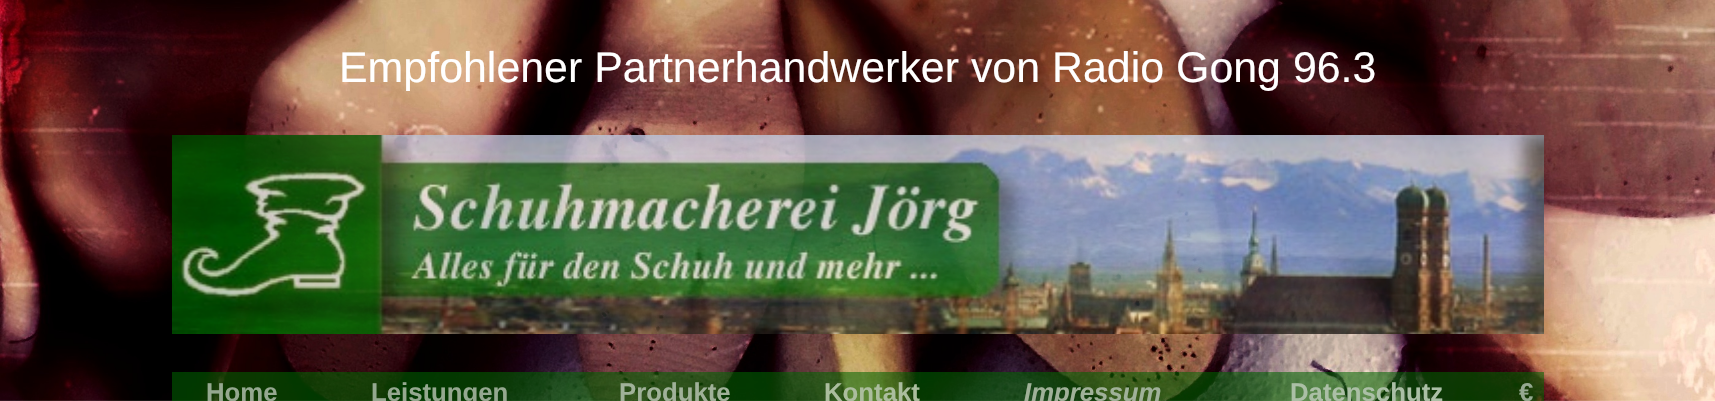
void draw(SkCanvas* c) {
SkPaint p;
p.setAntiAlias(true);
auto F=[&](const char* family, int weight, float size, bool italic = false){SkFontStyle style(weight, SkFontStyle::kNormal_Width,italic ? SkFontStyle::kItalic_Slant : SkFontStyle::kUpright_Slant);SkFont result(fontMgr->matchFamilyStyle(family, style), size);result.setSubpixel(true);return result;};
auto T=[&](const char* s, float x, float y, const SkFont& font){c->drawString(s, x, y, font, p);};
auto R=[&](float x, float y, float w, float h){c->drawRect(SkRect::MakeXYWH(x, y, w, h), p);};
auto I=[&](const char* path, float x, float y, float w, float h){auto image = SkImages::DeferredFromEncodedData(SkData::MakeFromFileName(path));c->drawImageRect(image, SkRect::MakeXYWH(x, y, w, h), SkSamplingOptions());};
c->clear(0xffffffff);
I("1.png",0,0,1715,401);
auto f1 = F("Liberation Sans",400,42.9);
p.setColor(0xffffffff);
T("Empfohlener Partnerhandwerker von Radio Gong 96.3",339,82,f1);
I("2.png",172,135,1372,199);
p.setColor(0x8f006400);
R(172,372,1372,29);
auto f2 = F("Liberation Sans",700,25.75);
p.setColor(0xff95a890);
T("Home",206,401,f2);
T("Leistungen",371,401,f2);
p.setColor(0xffa0b199);
T("Produkte",619,401,f2);
p.setColor(0xffabbd9e);
T("Kontakt",824,401,f2);
auto f3 = F("Liberation Sans",700,25.75,true);
p.setColor(0xffa0b199);
T("Impressum",1024,401,f3);
p.setColor(0xffabbfa6);
T("Datenschutz",1290,401,f2);
p.setColor(0xff95a890);
T("€",1519,401,f2);
}
